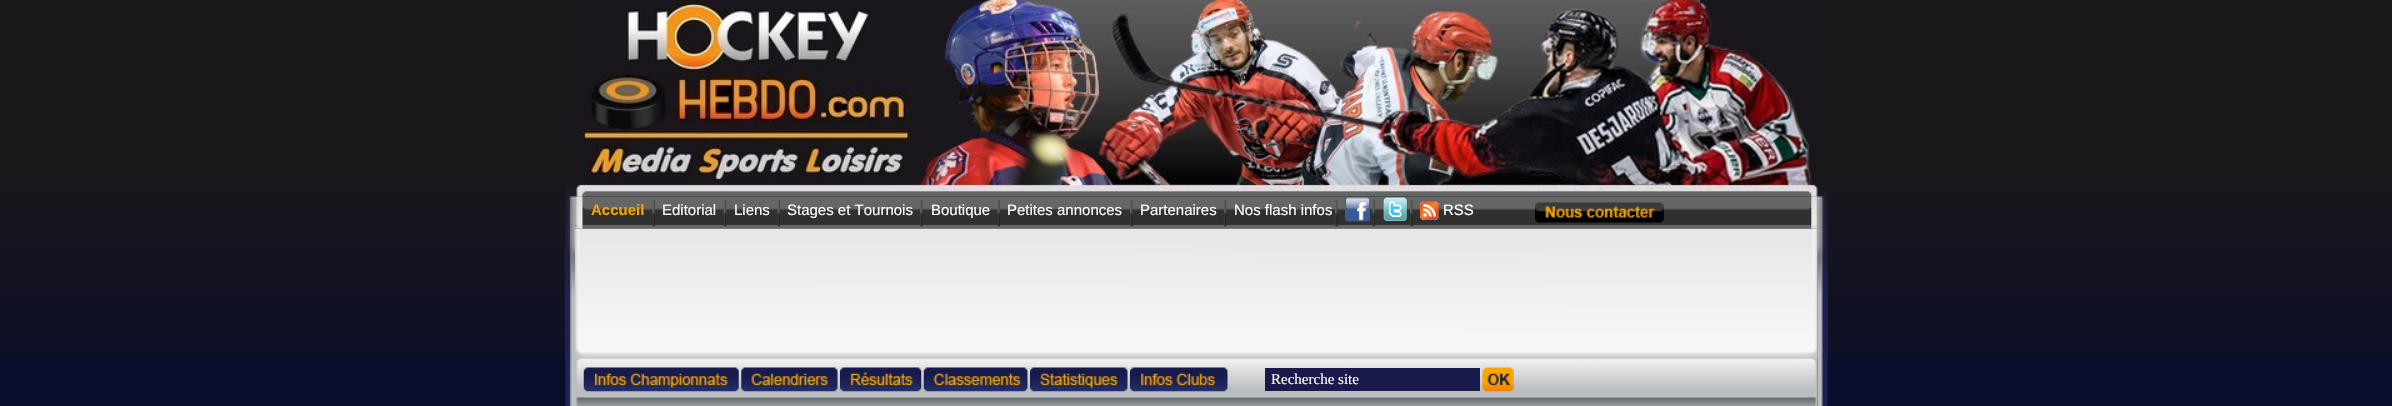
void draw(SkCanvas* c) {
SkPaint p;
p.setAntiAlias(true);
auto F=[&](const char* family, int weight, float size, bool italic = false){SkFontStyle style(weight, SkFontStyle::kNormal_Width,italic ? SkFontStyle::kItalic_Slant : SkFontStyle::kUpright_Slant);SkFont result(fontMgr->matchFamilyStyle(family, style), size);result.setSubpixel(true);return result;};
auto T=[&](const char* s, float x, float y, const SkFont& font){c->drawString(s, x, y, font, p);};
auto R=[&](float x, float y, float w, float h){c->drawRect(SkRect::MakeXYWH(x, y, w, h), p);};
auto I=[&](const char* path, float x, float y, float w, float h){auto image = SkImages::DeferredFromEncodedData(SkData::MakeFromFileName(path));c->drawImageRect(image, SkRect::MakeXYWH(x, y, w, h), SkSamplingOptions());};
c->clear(0xff0a0c2c);
I("1.png",0,0,2392,356);
I("3.png",565,196,10,210);
I("5.png",575,196,1243,33);
I("13.png",575,228,1243,178);
I("21.png",1817,196,11,210);
I("2.png",566,0,1262,197);
I("4.png",565,196,10,163);
auto f1 = F("Liberation Sans",700,15);
p.setColor(0xfff7a600);
T("Accueil",591,215,f1);
I("6.png",652,200,3,27);
auto f2 = F("Liberation Sans",400,15);
p.setColor(0xffffffff);
T("Editorial",662,215,f2);
I("7.png",723,200,4,27);
T("Liens",734,215,f2);
I("6.png",777,200,3,27);
T("Stages et Tournois",787,215,f2);
I("8.png",920,200,3,27);
T("Boutique",931,215,f2);
I("6.png",997,200,3,27);
T("Petites annonces",1007,215,f2);
I("8.png",1130,200,3,27);
T("Partenaires",1140,215,f2);
I("7.png",1223,200,4,27);
T("Nos flash infos",1234,215,f2);
I("8.png",1335,200,3,27);
I("9.png",1345,197,25,25);
I("6.png",1372,200,3,27);
I("10.png",1383,197,25,26);
I("8.png",1410,200,3,27);
I("11.png",1420,201,19,19);
T("RSS",1443,215,f2);
I("12.png",1535,202,129,21);
I("14.png",583,367,156,25);
I("15.png",741,367,97,25);
I("16.png",840,367,82,25);
I("17.png",923,367,105,25);
I("18.png",1030,367,98,25);
I("19.png",1130,367,98,25);
p.setColor(0xff171a4b);
R(1265,368,215,23);
auto f3 = F("Liberation Serif",400,15);
p.setColor(0xffffffff);
T("Recherche site",1271,384,f3);
I("20.png",1482,367,32,25);
I("22.png",1817,196,11,163);
}
